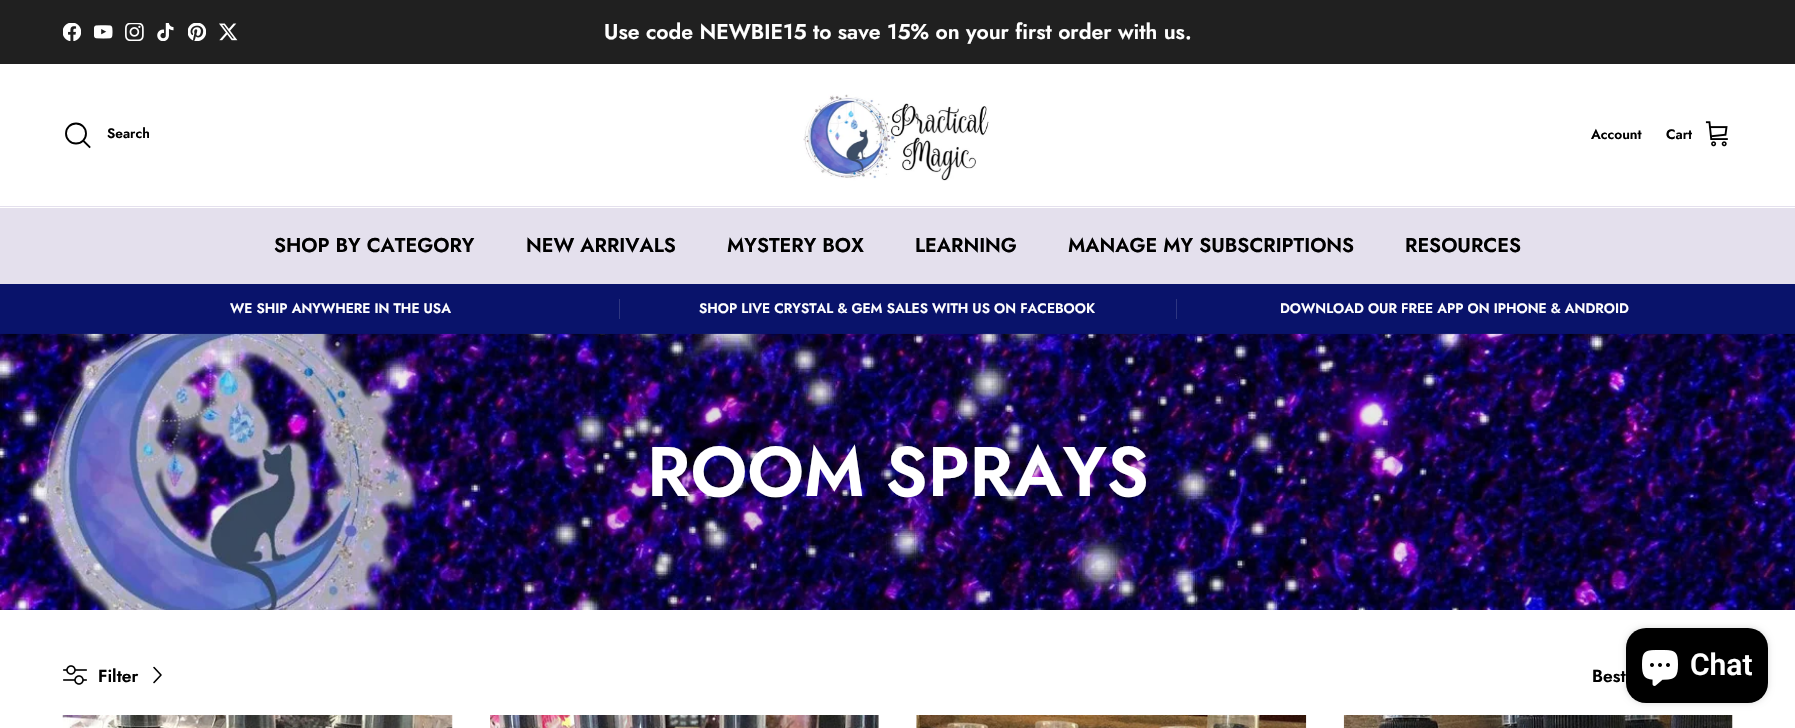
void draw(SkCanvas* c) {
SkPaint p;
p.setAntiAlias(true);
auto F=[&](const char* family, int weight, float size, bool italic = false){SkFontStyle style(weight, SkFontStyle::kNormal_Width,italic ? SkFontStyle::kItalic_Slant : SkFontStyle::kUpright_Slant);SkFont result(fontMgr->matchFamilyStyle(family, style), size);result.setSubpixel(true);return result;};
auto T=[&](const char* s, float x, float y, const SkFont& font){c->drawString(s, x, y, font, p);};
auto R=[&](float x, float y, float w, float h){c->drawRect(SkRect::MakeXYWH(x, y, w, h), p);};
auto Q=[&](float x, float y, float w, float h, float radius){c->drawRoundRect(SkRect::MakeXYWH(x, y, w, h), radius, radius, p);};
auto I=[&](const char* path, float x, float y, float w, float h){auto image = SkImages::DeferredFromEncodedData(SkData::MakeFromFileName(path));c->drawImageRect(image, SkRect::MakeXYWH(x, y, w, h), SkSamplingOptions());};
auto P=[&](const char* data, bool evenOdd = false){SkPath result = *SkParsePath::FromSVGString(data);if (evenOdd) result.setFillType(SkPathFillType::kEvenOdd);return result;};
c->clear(0xffffffff);
p.setColor(0xff202020);
R(0,0,1795,64);
I("1.png",63,23,18,18);
I("2.png",94,25,19,14);
I("3.png",125,23,19,18);
I("4.png",157,23,17,18);
I("5.png",188,23,18,18);
I("6.png",219,23,19,18);
auto f1 = F("Jost",600,21.25);
p.setColor(0xffffffff);
T("Use code NEWBIE15 to save 15% on your first order with us.",604,39,f1);
p.setColor(0xffe4e0ed);
R(0,206,1795,1);
p.setStroke(true);
p.setStrokeWidth(1.9);
p.setColor(0xff000000);
c->drawCircle(76,133.5,10,p);
auto f2 = F("Jost",600,13.75);
p.setStroke(false);
T("Search",107,138,f2);
p.setStroke(true);
p.setStrokeCap(SkPaint::kSquare_Cap);
c->drawPath(P("M83.5 141l6 6"),p);
I("7.png",803,94,186,87);
p.setStroke(false);
T("Account",1591,139,f2);
T("Cart",1666,139,f2);
I("8.png",1705,121,23,26);
p.setColor(0xffe4e0ed);
R(0,208,1795,76);
auto f3 = F("Jost",600,20);
p.setColor(0xff000000);
T("SHOP BY CATEGORY",274,252,f3);
T("NEW ARRIVALS",526,252,f3);
T("MYSTERY BOX",727,252,f3);
T("LEARNING",915,252,f3);
T("MANAGE MY SUBSCRIPTIONS",1068,252,f3);
T("RESOURCES",1405,252,f3);
p.setColor(0xff09136b);
R(0,284,1795,50);
p.setColor(0xffffffff);
T("WE SHIP ANYWHERE IN THE USA",230,313,f2);
p.setColor(0xff2e3681);
R(619,299,1,20);
p.setColor(0xffffffff);
T("SHOP LIVE CRYSTAL & GEM SALES WITH US ON FACEBOOK",699,313,f2);
p.setColor(0xff2e3681);
R(1176,299,1,20);
p.setColor(0xffffffff);
T("DOWNLOAD OUR FREE APP ON IPHONE & ANDROID",1280,313,f2);
I("9.png",0,333,1795,277);
auto f4 = F("Jost",600,70);
T("ROOM SPRAYS",647,496,f4);
I("10.png",63,665,24,20);
auto f5 = F("Jost",600,17.5);
p.setColor(0xff000000);
T("Filter",98,682,f5);
p.setStroke(true);
p.setStrokeWidth(1.6);
p.setStrokeCap(SkPaint::kRound_Cap);
p.setStrokeJoin(SkPaint::kRound_Join);
c->drawPath(P("M154 682.5l7-7.5l-7-7.5"),p);
p.setStroke(false);
T("Best",1592,682,f5);
I("11.png",62,715,391,13);
I("12.png",490,715,389,13);
I("13.png",916,715,391,13);
I("14.png",1343,715,390,13);
p.setColor(0x26000000);
p.setMaskFilter(SkMaskFilter::MakeBlur(kNormal_SkBlurStyle, 3));
c->drawRoundRect(SkRect::MakeXYWH(1626,628,142,75),20,20,p);
p.setMaskFilter(nullptr);
p.setColor(0xff000000);
Q(1626,628,142,75,20);
I("15.png",1642,650,36,36);
auto f6 = F("Roboto",600,30);
p.setColor(0xffffffff);
T("Chat",1690,675,f6);
}
